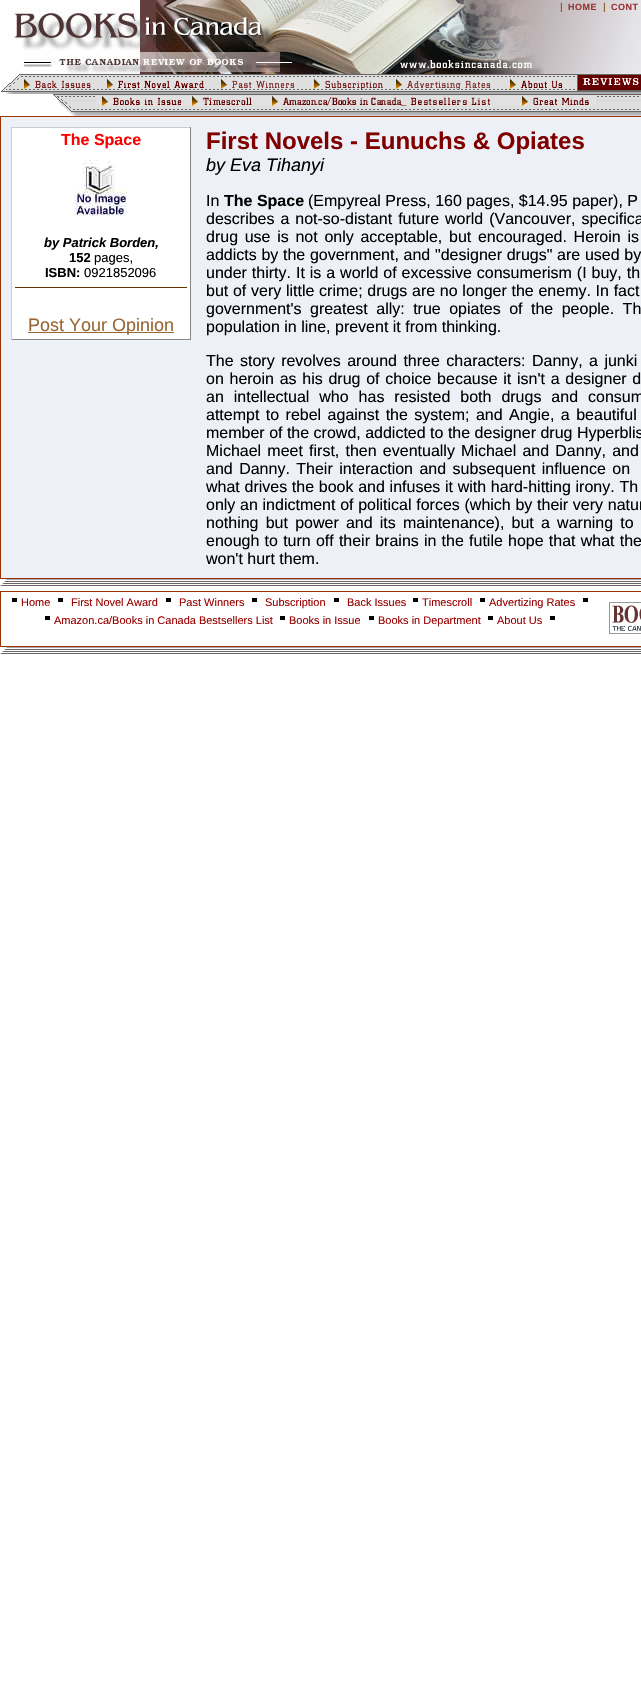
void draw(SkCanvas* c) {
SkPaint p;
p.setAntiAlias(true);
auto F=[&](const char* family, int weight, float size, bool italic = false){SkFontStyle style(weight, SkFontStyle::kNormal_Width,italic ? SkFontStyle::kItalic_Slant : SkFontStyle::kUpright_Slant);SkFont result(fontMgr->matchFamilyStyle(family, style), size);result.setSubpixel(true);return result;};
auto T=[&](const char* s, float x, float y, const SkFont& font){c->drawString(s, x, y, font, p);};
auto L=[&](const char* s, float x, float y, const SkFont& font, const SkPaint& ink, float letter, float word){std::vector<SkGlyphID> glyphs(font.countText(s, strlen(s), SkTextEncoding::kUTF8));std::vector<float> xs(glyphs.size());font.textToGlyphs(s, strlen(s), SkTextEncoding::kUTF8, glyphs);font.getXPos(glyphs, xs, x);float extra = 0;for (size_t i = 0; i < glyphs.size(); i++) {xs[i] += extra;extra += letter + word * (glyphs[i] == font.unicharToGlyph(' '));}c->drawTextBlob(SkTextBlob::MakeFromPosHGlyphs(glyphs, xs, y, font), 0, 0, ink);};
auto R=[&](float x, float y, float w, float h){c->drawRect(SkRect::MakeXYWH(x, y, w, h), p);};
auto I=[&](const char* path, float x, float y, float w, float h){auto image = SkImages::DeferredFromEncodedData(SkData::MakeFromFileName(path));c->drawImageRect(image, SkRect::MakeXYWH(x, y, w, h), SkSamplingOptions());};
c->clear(0xffffffff);
I("1.png",8,0,633,116);
auto f1 = F("Liberation Sans",400,10);
p.setColor(0xff804000);
T("|",560,10,f1);
auto f2 = F("Liberation Sans",700,9);
p.setColor(0xff993333);
L("HOME",568,10,f2,p,.5,0);
p.setColor(0xff804000);
T("|",603,10,f1);
p.setColor(0xff993333);
L("CONT",611,10,f2,p,.5,1);
I("2.png",1,74,640,20);
I("3.png",24,79,67,10);
I("4.png",107,79,97,10);
I("5.png",221,79,74,10);
I("6.png",314,79,69,10);
I("7.png",396,79,95,10);
I("8.png",510,79,53,10);
I("9.png",577,75,64,16);
I("10.png",53,94,588,22);
I("11.png",96,96,90,10);
I("12.png",186,96,80,10);
I("13.png",266,96,250,10);
I("14.png",516,96,80,10);
p.setColor(0xffedf0f7);
c->drawRect(SkRect::MakeXYWH(.5,116.5,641,462),p);
p.setStroke(true);
p.setStrokeWidth(1);
p.setColor(0xff993300);
c->drawRect(SkRect::MakeXYWH(.5,116.5,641,462),p);
p.setStroke(false);
p.setColor(0xffffffff);
R(12,128,178,211);
p.setColor(0xffcccccc);
R(11,127,180,1);
p.setColor(0xff888888);
R(190,127,1,213);
R(11,339,180,1);
p.setColor(0xffcccccc);
R(11,127,1,213);
auto f3 = F("Liberation Sans",700,16);
p.setColor(0xffff0000);
T("The Space",61,145,f3);
I("15.png",75,160,52,56);
auto f4 = F("Liberation Sans",700,13,true);
p.setColor(0xff000000);
T("by Patrick Borden,",44,247,f4);
auto f5 = F("Liberation Sans",700,13);
T("152",69,262,f5);
auto f6 = F("Liberation Sans",400,13);
T("pages,",94,262,f6);
T("ISBN:",45,277,f5);
T("0921852096",84,277,f6);
p.setColor(0xff663300);
R(15,287,172,1);
p.setColor(0xff996633);
R(28,332,146,1);
auto f7 = F("Liberation Sans",400,18);
T("Post Your Opinion",28,331,f7);
auto f8 = F("Liberation Sans",700,24);
p.setColor(0xff800000);
T("First Novels - Eunuchs & Opiates",206,149,f8);
auto f9 = F("Liberation Sans",400,18,true);
p.setColor(0xff000000);
T("by Eva Tihanyi",206,171,f9);
auto f10 = F("Liberation Sans",400,16);
T("In",206,206,f10);
T("The Space",224,206,f3);
T("(Empyreal Press, 160 pages, $14.95 paper), P",308,206,f10);
L("describes a not-so-distant future world (Vancouver, specifica",206,224,f10,p,0,1.5);
L("drug use is not only acceptable, but encouraged. Heroin is",206,242,f10,p,0,2.25);
L("addicts by the government, and \"designer drugs\" are used by",206,260,f10,p,0,.25);
L("under thirty. It is a world of excessive consumerism (I buy, th",206,278,f10,p,0,.5);
L("but of very little crime; drugs are no longer the enemy. In fact",206,296,f10,p,0,.25);
L("government's greatest ally: true opiates of the people. Th",206,314,f10,p,0,4);
T("population in line, prevent it from thinking.",206,332,f10);
L("The story revolves around three characters: Danny, a junki",206,366,f10,p,0,2);
L("on heroin as his drug of choice because it isn't a designer d",206,384,f10,p,0,1.25);
L("an intellectual who has resisted both drugs and consum",206,402,f10,p,0,5.5);
L("attempt to rebel against the system; and Angie, a beautiful",206,420,f10,p,0,2);
T("member of the crowd, addicted to the designer drug Hyperblis",206,438,f10);
L("Michael meet first, then eventually Michael and Danny, and",206,456,f10,p,0,1.75);
L("and Danny. Their interaction and subsequent influence on",206,474,f10,p,0,2);
L("what drives the book and infuses it with hard-hitting irony. Th",206,492,f10,p,0,.25);
L("only an indictment of political forces (which by their very natur",206,510,f10,p,0,.25);
L("nothing but power and its maintenance), but a warning to",206,528,f10,p,0,2.75);
L("enough to turn off their brains in the futile hope that what the",206,546,f10,p,0,.75);
T("won't hurt them.",206,564,f10);
I("16.png",0,579,641,7);
p.setStroke(true);
p.setColor(0xff993300);
c->drawRect(SkRect::MakeXYWH(.5,591.5,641,55),p);
p.setStroke(false);
p.setColor(0xff000000);
R(12,598,5,4);
auto f11 = F("Liberation Sans",400,11);
p.setColor(0xff990000);
T("Home",21,606,f11);
p.setColor(0xff000000);
R(58,598,5,4);
p.setColor(0xff990000);
T("First Novel Award",71,606,f11);
p.setColor(0xff000000);
R(166,598,5,4);
p.setColor(0xff990000);
T("Past Winners",179,606,f11);
p.setColor(0xff000000);
R(252,598,5,4);
p.setColor(0xff990000);
T("Subscription",265,606,f11);
p.setColor(0xff000000);
R(334,598,5,4);
p.setColor(0xff990000);
T("Back Issues",347,606,f11);
p.setColor(0xff000000);
R(413,598,5,4);
p.setColor(0xff990000);
T("Timescroll",422,606,f11);
p.setColor(0xff000000);
R(480,598,5,4);
p.setColor(0xff990000);
T("Advertizing Rates",489,606,f11);
p.setColor(0xff000000);
R(583,598,5,4);
R(45,616,5,4);
p.setColor(0xff990000);
T("Amazon.ca/Books in Canada Bestsellers List",54,624,f11);
p.setColor(0xff000000);
R(280,616,5,4);
p.setColor(0xff990000);
T("Books in Issue",289,624,f11);
p.setColor(0xff000000);
R(369,616,5,4);
p.setColor(0xff990000);
T("Books in Department",378,624,f11);
p.setColor(0xff000000);
R(488,616,5,4);
p.setColor(0xff990000);
T("About Us",497,624,f11);
p.setColor(0xff000000);
R(550,616,5,4);
I("17.png",609,602,32,32);
I("16.png",0,647,641,7);
}
